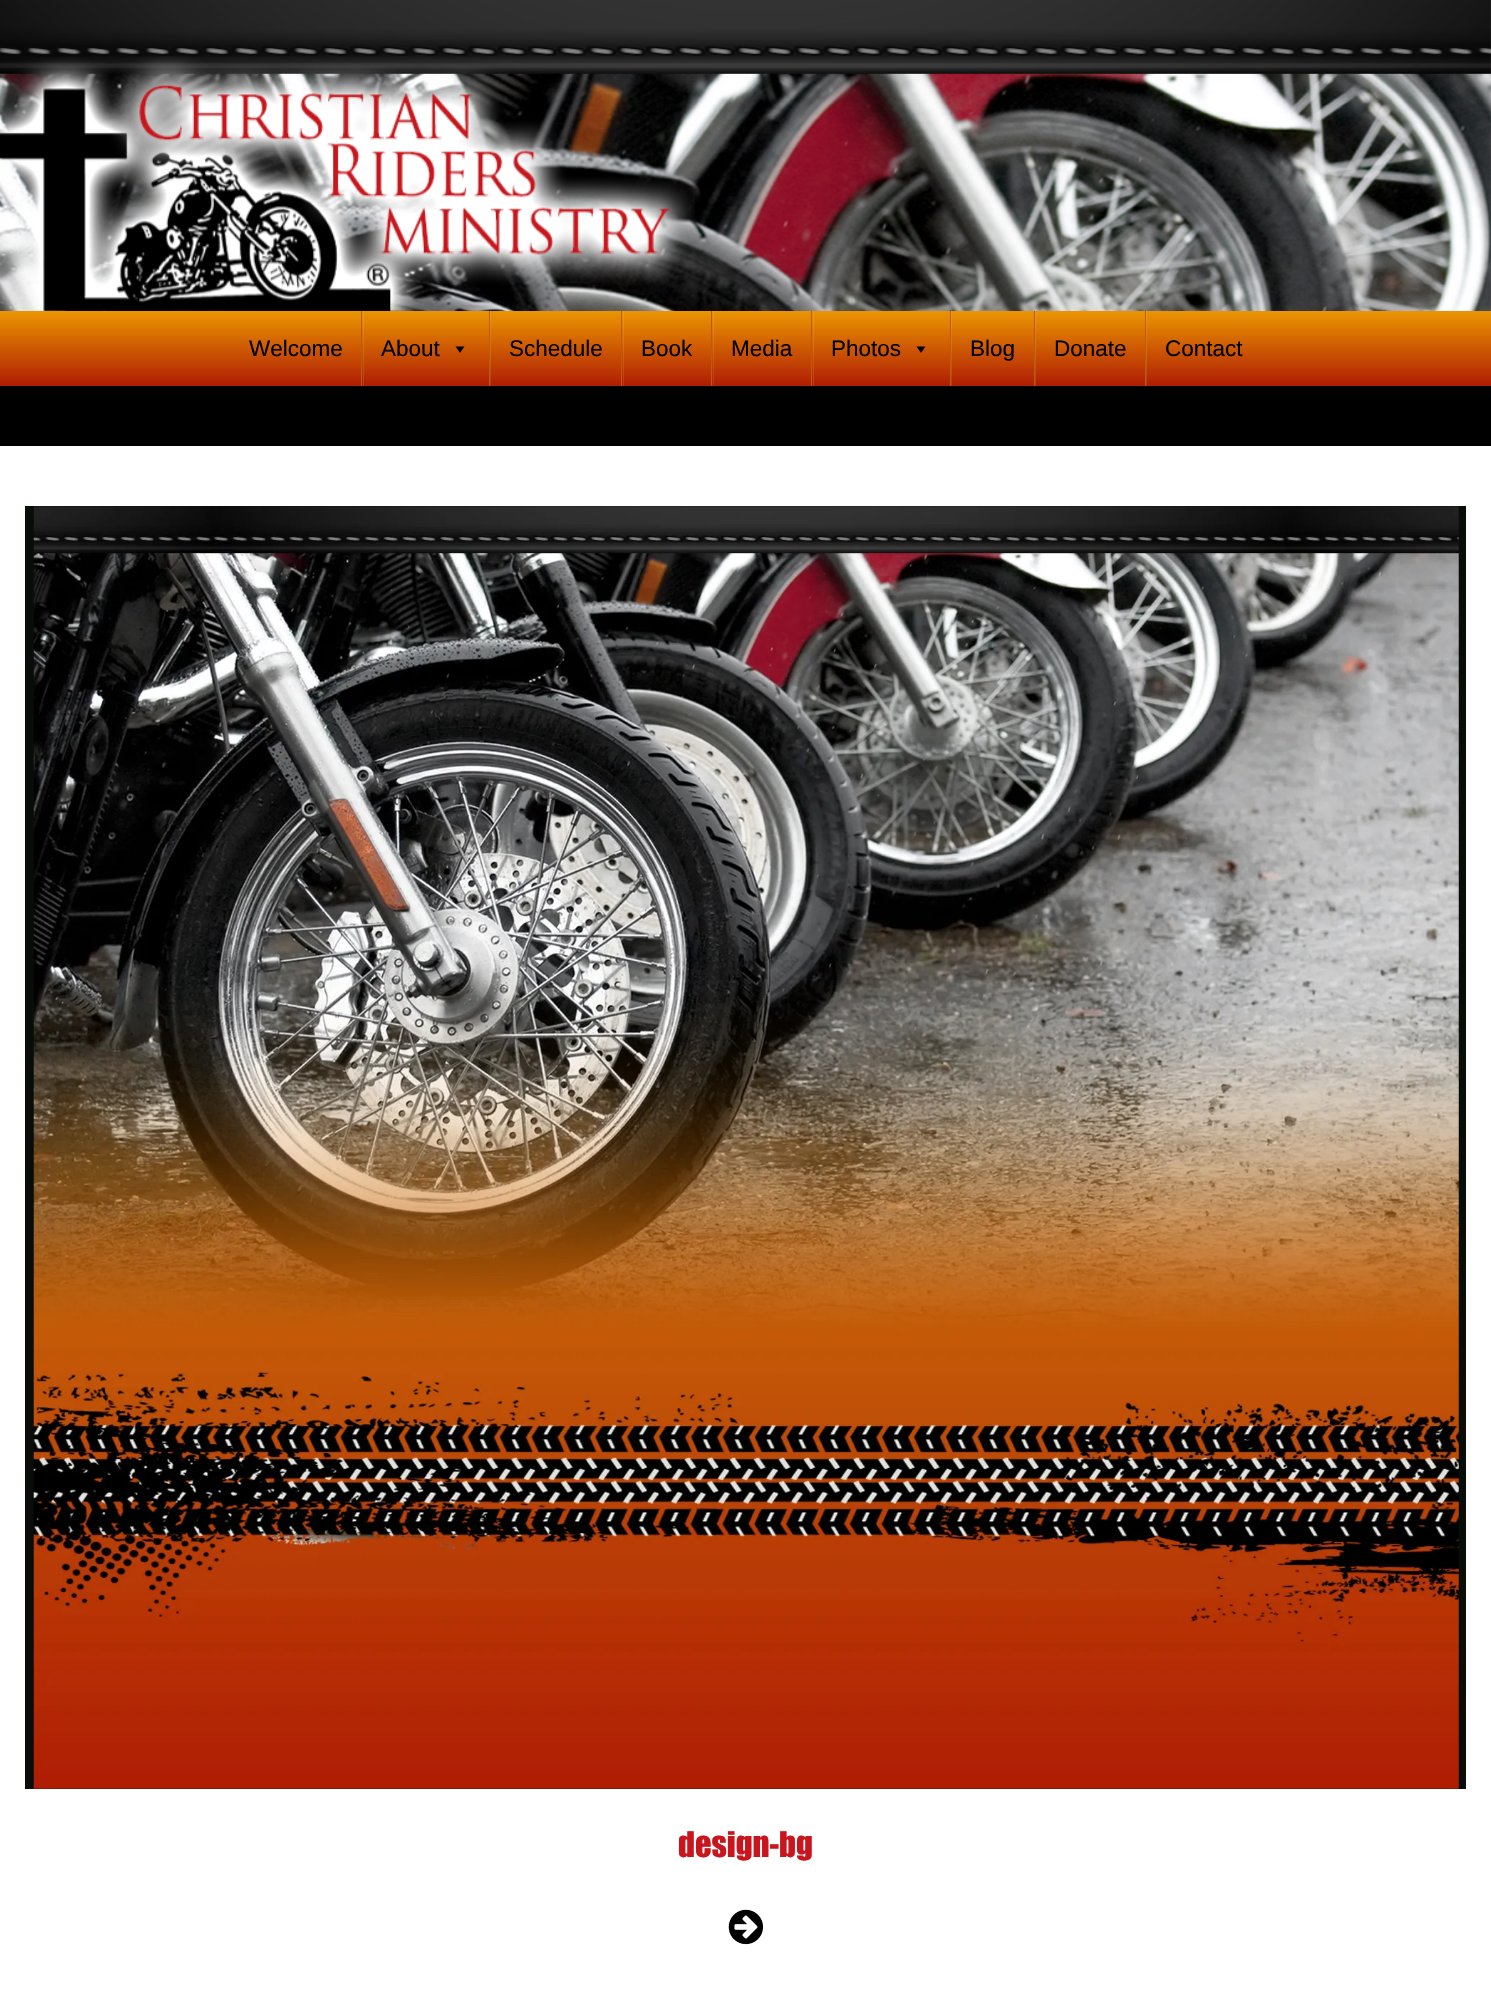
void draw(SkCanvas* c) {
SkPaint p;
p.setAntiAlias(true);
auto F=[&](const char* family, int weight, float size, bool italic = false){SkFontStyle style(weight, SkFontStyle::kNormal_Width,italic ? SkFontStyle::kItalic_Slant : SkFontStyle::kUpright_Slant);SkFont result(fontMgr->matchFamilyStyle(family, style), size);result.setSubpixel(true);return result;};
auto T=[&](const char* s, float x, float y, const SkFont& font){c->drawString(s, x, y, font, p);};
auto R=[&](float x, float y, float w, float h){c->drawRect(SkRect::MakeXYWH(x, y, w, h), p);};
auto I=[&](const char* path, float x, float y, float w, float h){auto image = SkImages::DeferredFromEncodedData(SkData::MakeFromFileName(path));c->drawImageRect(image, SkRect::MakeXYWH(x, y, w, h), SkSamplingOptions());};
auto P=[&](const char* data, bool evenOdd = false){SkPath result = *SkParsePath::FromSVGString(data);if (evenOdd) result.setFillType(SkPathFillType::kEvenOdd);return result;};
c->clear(0xffffffff);
I("1.png",0,0,1491,311);
I("2.png",0,56,695,255);
{
const SkColor colors[] = {0xffeb9502,0xffaf1d04};
const float stops[] = {0,1};
const SkPoint ends[] = {{746,311}, {746,386}};
p.setShader(SkGradientShader::MakeLinear(ends, colors, stops, 2, SkTileMode::kClamp));
p.setAlpha(255);
}
R(0,311,1491,75);
auto f1 = F("Liberation Sans",400,22.5);
p.setShader(nullptr);
p.setColor(0xff000000);
T("Welcome",249,356,f1);
p.setColor(0x1affffff);
R(363,311,1,75);
p.setColor(0xffc35806);
R(361,311,1,75);
p.setColor(0xff000000);
T("About",381,356,f1);
c->drawPath(P("M464.5 346.5l-4.5 6.5l-4.5-6.5z"),p);
p.setColor(0x1affffff);
R(490,311,1,75);
p.setColor(0xffc35806);
R(489,311,1,75);
p.setColor(0xff000000);
T("Schedule",509,356,f1);
p.setColor(0x1affffff);
R(623,311,1,75);
p.setColor(0xffc35806);
R(621,311,1,75);
p.setColor(0xff000000);
T("Book",641,356,f1);
p.setColor(0x1affffff);
R(713,311,1,75);
p.setColor(0xffc35806);
R(711,311,1,75);
p.setColor(0xff000000);
T("Media",731,356,f1);
p.setColor(0x1affffff);
R(813,311,1,75);
p.setColor(0xffc35806);
R(811,311,1,75);
p.setColor(0xff000000);
T("Photos",831,356,f1);
c->drawPath(P("M925.5 346.5l-4.5 6.5l-4.5-6.5z"),p);
p.setColor(0x1affffff);
R(951,311,1,75);
p.setColor(0xffc35806);
R(950,311,1,75);
p.setColor(0xff000000);
T("Blog",970,356,f1);
p.setColor(0x1affffff);
R(1035,311,1,75);
p.setColor(0xffc35806);
R(1034,311,1,75);
p.setColor(0xff000000);
T("Donate",1054,356,f1);
p.setColor(0x1affffff);
R(1146,311,1,75);
p.setColor(0xffc35806);
R(1145,311,1,75);
p.setColor(0xff000000);
T("Contact",1165,356,f1);
R(0,386,1491,60);
p.setColor(0xff080d07);
R(25,506,1441,1283);
I("3.png",33,506,1426,1283);
auto f2 = F("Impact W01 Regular",400,32.5);
p.setColor(0xffc9151e);
T("design-bg",678,1857,f2);
I("4.png",728,1909,35,36);
}
